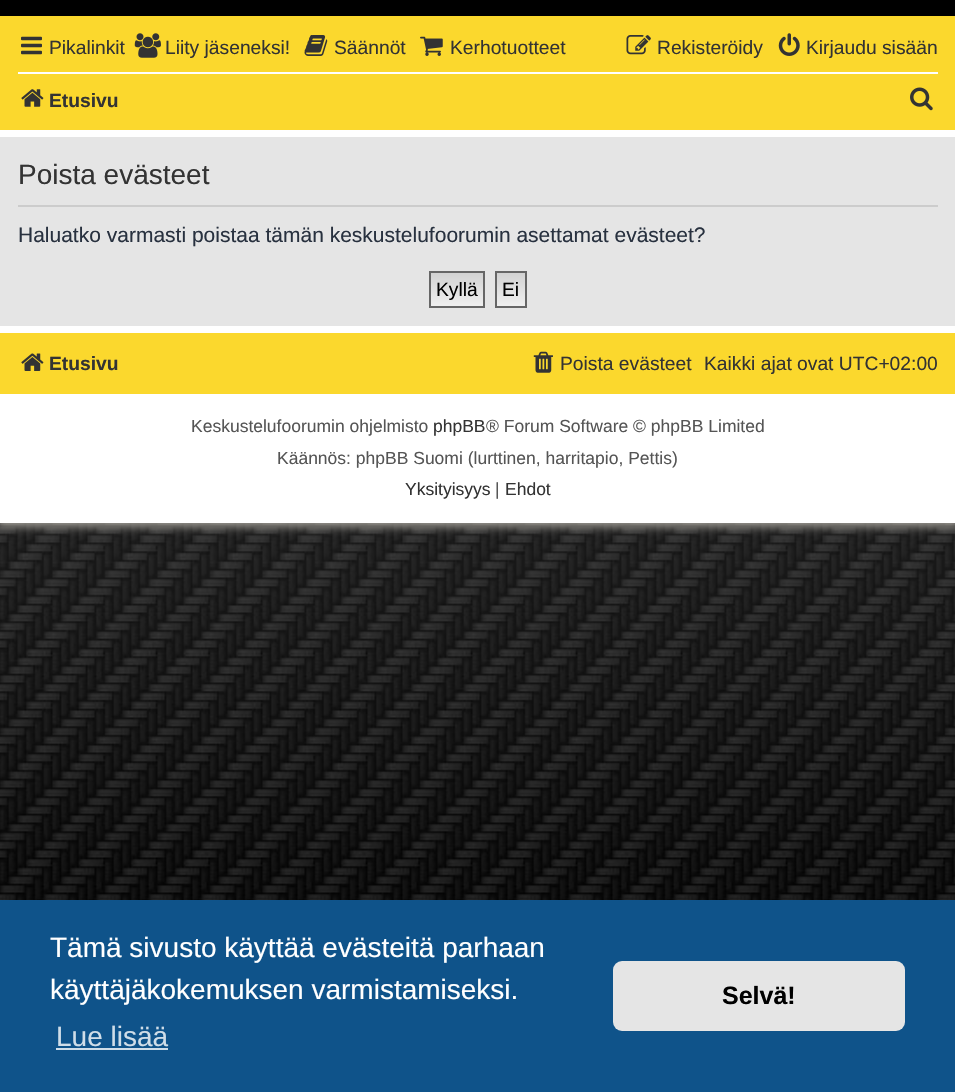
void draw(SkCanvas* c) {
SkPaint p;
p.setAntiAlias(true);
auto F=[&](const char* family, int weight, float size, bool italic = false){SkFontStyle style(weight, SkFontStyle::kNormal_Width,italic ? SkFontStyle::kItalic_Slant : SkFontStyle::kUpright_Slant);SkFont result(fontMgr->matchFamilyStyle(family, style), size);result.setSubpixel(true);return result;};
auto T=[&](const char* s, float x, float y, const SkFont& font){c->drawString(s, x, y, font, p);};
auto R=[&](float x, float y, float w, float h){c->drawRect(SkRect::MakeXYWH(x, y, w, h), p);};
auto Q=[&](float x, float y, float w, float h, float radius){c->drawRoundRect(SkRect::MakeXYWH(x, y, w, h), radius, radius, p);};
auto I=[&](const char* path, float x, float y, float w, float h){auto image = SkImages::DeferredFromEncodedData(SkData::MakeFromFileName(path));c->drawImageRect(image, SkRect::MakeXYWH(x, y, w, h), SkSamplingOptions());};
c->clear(0xffffffff);
I("1.png",0,523,955,377);
p.setColor(0xff9d9a93);
p.setMaskFilter(SkMaskFilter::MakeBlur(kNormal_SkBlurStyle, 4.5));
c->drawRect(SkRect::MakeXYWH(-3,-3,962,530),p);
p.setMaskFilter(nullptr);
p.setColor(0xffffffff);
R(0,130,955,393);
p.setColor(0xff000000);
R(0,0,955,16);
p.setColor(0xfffbd82d);
R(0,16,955,114);
I("2.png",21,36,21,19);
auto f1 = F("Liberation Sans",400,19.25);
p.setColor(0xff333333);
T("Pikalinkit",49,54,f1);
I("3.png",134,33,27,25);
T("Liity jäseneksi!",165,54,f1);
I("4.png",304,35,24,21);
T("Säännöt",334,54,f1);
I("5.png",420,36,23,20);
T("Kerhotuotteet",450,54,f1);
I("6.png",626,35,25,20);
T("Rekisteröidy",657,54,f1);
I("7.png",778,33,22,23);
T("Kirjaudu sisään",806,54,f1);
p.setColor(0xffffffff);
R(18,72,920,2);
I("8.png",21,89,23,18);
auto f2 = F("Liberation Sans",700,19.25);
p.setColor(0xff333333);
T("Etusivu",49,107,f2);
I("9.png",910,87,23,24);
p.setColor(0xffe5e5e5);
R(0,137,955,189);
p.setColor(0xffcccccc);
R(18,205,920,2);
auto f3 = F("Liberation Sans",400,28);
p.setColor(0xff333333);
T("Poista evästeet",18,184,f3);
auto f4 = F("Liberation Sans",400,21);
p.setColor(0xff28313f);
T("Haluatko varmasti poistaa tämän keskustelufoorumin asettamat evästeet?",18,242,f4);
{
const SkColor colors[] = {0xffd2d2d2,0xffefefef};
const float stops[] = {0,1};
const SkPoint ends[] = {{457,273}, {457,306}};
p.setShader(SkGradientShader::MakeLinear(ends, colors, stops, 2, SkTileMode::kClamp));
p.setAlpha(255);
}
R(431,273,52,33);
p.setStroke(true);
p.setStrokeWidth(2);
p.setShader(nullptr);
p.setColor(0xff666666);
c->drawRect(SkRect::MakeXYWH(430,272,54,35),p);
p.setStroke(false);
p.setColor(0xff000000);
T("Kyllä",436,296,f1);
{
const SkColor colors[] = {0xffd2d2d2,0xffefefef};
const float stops[] = {0,1};
const SkPoint ends[] = {{511,273}, {511,306}};
p.setShader(SkGradientShader::MakeLinear(ends, colors, stops, 2, SkTileMode::kClamp));
p.setAlpha(255);
}
R(497,273,28,33);
p.setStroke(true);
p.setShader(nullptr);
p.setColor(0xff666666);
c->drawRect(SkRect::MakeXYWH(496,272,30,35),p);
p.setStroke(false);
p.setColor(0xff000000);
T("Ei",502,296,f1);
p.setColor(0xfffbd82d);
R(0,333,955,61);
I("10.png",21,353,23,18);
p.setColor(0xff333333);
T("Etusivu",49,370,f2);
I("11.png",533,351,20,22);
T("Poista evästeet",560,370,f1);
T("Kaikki ajat ovat UTC+02:00",704,370,f1);
auto f5 = F("Liberation Sans",400,17.5);
p.setColor(0xff555555);
T("Keskustelufoorumin ohjelmisto",191,432,f5);
p.setColor(0xff333333);
T("phpBB",433,432,f5);
p.setColor(0xff555555);
T("® Forum Software © phpBB Limited",486,432,f5);
T("Käännös: phpBB Suomi (lurttinen, harritapio, Pettis)",277,464,f5);
p.setColor(0xff333333);
T("Yksityisyys",405,495,f5);
p.setColor(0xff555555);
T("|",495,495,f5);
p.setColor(0xff333333);
T("Ehdot",505,495,f5);
p.setColor(0xff0f538a);
R(0,900,955,192);
p.setColor(0xffffffff);
T("Tämä sivusto käyttää evästeitä parhaan",50,957,f3);
T("käyttäjäkokemuksen varmistamiseksi.",50,999,f3);
p.setColor(0xffcfdde8);
T("Lue lisää",56,1046,f3);
R(56,1048,112,2);
p.setColor(0xffe5e5e5);
Q(613,961,292,70,9);
auto f6 = F("Liberation Sans",700,25);
p.setColor(0xff000000);
T("Selvä!",722,1004,f6);
}
